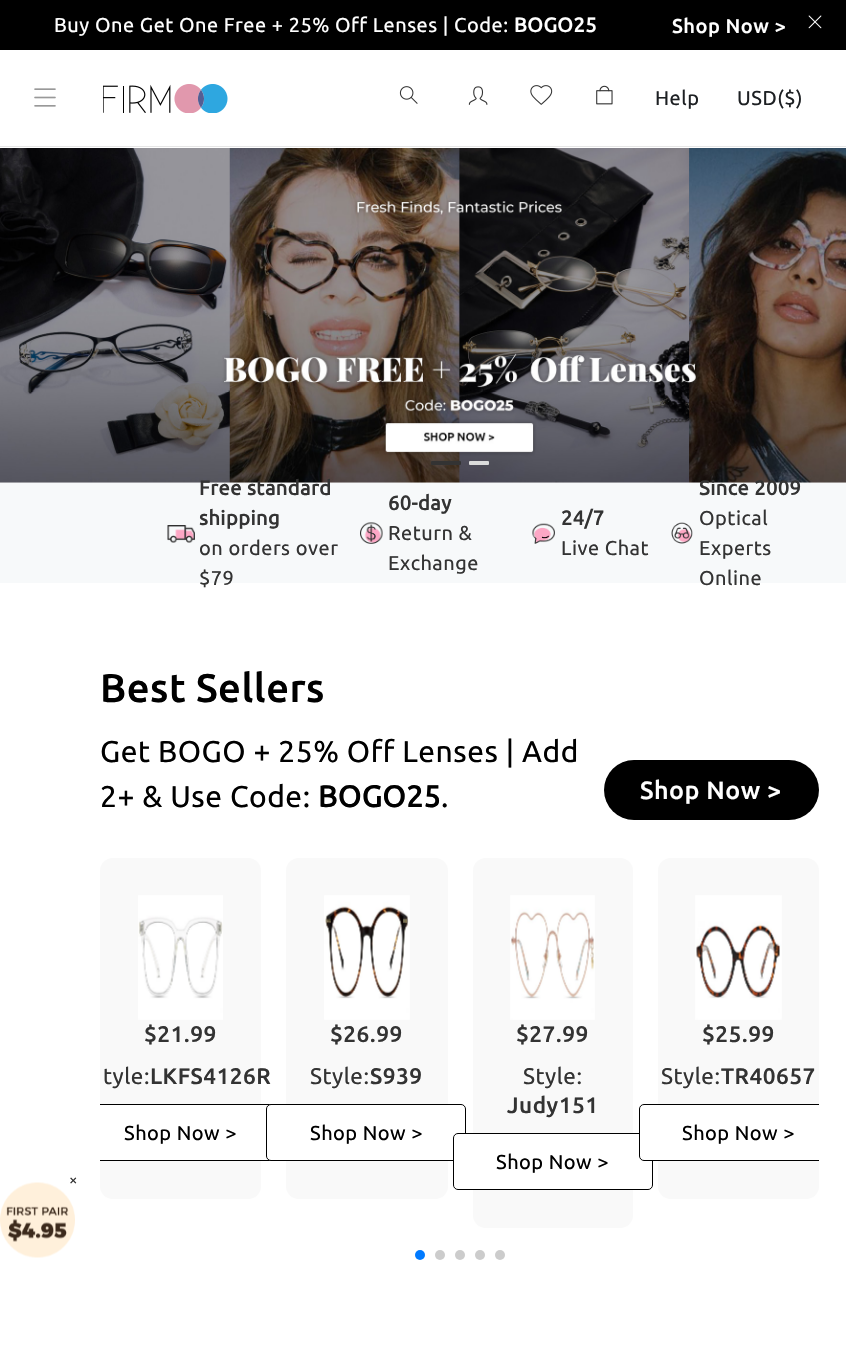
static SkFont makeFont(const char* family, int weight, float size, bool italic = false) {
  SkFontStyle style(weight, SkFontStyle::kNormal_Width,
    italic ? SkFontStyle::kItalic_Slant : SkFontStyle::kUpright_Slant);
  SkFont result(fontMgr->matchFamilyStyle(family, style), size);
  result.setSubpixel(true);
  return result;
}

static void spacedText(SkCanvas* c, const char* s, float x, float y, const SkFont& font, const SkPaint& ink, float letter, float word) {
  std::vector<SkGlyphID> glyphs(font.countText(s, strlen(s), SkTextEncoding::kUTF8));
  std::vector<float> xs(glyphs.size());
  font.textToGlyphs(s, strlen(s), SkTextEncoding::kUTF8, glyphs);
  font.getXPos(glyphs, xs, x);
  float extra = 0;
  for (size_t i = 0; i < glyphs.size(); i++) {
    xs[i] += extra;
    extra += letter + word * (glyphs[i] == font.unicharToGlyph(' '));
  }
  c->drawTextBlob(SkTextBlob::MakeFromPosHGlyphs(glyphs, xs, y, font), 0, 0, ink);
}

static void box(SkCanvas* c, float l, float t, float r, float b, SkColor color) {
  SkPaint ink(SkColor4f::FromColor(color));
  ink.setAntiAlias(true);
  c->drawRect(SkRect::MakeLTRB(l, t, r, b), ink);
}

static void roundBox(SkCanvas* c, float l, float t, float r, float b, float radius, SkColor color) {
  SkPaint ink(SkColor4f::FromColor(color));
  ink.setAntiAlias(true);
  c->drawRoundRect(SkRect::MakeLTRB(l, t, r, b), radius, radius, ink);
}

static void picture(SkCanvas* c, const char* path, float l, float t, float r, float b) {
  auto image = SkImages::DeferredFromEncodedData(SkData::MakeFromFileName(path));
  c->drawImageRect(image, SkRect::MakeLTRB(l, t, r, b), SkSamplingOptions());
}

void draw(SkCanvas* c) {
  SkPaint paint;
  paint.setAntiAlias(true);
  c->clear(0xffffffff);
  box(c, 0, 0, 846, 50, 0xff000000);
  SkFont face1 = makeFont("Ubuntu", 400, 20);
  paint.setColor(0xffffffff);
  spacedText(c, "Buy One Get One Free + 25% Off Lenses | Code:", 54, 32, face1, paint, 0.5f, 0);
  SkFont face2 = makeFont("Ubuntu", 700, 20);
  spacedText(c, "BOGO25", 514, 32, face2, paint, 0.5f, 0);
  SkFont face3 = makeFont("Ubuntu", 500, 20);
  spacedText(c, "Shop Now >", 672, 33, face3, paint, 0.5f, 0);
  picture(c, "img_01.png", 808, 15, 822, 29);
  box(c, 0, 146, 846, 147, 0xffe6e6e6);
  picture(c, "img_02.png", 34, 88, 56, 107);
  picture(c, "img_03.png", 103, 84, 228, 113);
  picture(c, "img_04.png", 399, 86, 418, 104);
  picture(c, "img_05.png", 468, 86, 488, 105);
  picture(c, "img_06.png", 530, 85, 553, 105);
  picture(c, "img_07.png", 596, 85, 613, 105);
  paint.setColor(0xff1d2023);
  spacedText(c, "Help", 655, 105, face1, paint, 0.5f, 0);
  spacedText(c, "USD($)", 737, 105, face1, paint, 0.5f, 0);
  box(c, 0, 482, 846, 483, 0xfff1f1f1);
  picture(c, "img_08.png", 0, 148, 846, 483);
  roundBox(c, 431, 461, 461, 465, 1, 0xff333333);
  roundBox(c, 469, 461, 489, 465, 1, 0xffdbdbdb);
  box(c, 0, 483, 846, 583, 0xfff7f9fa);
  picture(c, "img_09.png", 167, 525, 195, 543);
  paint.setColor(0xff333333);
  spacedText(c, "Free standard", 199, 495, face2, paint, 0.5f, 0);
  spacedText(c, "shipping", 199, 525, face2, paint, 0.5f, 0);
  spacedText(c, "on orders over", 199, 555, face1, paint, 0.5f, 0);
  spacedText(c, "$79", 199, 585, face1, paint, 0.5f, 0);
  picture(c, "img_10.png", 360, 522, 383, 544);
  spacedText(c, "60-day", 388, 510, face2, paint, 0.5f, 0);
  spacedText(c, "Return &", 388, 540, face1, paint, 0.5f, 0);
  spacedText(c, "Exchange", 388, 570, face1, paint, 0.5f, 0);
  picture(c, "img_11.png", 532, 523, 555, 544);
  spacedText(c, "24/7", 561, 525, face2, paint, 0.5f, 0);
  spacedText(c, "Live Chat", 561, 555, face1, paint, 0.5f, 0);
  picture(c, "img_12.png", 671, 522, 693, 544);
  spacedText(c, "Since 2009", 699, 495, face2, paint, 0.5f, 0);
  spacedText(c, "Optical", 699, 525, face1, paint, 0.5f, 0);
  spacedText(c, "Experts", 699, 555, face1, paint, 0.5f, 0);
  spacedText(c, "Online", 699, 585, face1, paint, 0.5f, 0);
  SkFont face4 = makeFont("Ubuntu", 500, 40);
  paint.setColor(0xff000000);
  spacedText(c, "Best Sellers", 100, 702, face4, paint, 0.5f, 0);
  SkFont face5 = makeFont("Ubuntu", 400, 30);
  spacedText(c, "Get BOGO + 25% Off Lenses | Add", 100, 762, face5, paint, 0.5f, 0);
  spacedText(c, "2+ & Use Code:", 100, 807, face5, paint, 0.5f, 0);
  SkFont face6 = makeFont("Ubuntu", 700, 30);
  spacedText(c, "BOGO25", 318, 807, face6, paint, 0.5f, 0);
  spacedText(c, ".", 441, 807, face5, paint, 0.5f, 0);
  roundBox(c, 604, 760, 819, 820, 30, 0xff000000);
  SkFont face7 = makeFont("Ubuntu", 500, 25);
  paint.setColor(0xffffffff);
  spacedText(c, "Shop Now >", 640, 799, face7, paint, 0.5f, 0);
  roundBox(c, 100, 858, 261, 1199, 13, 0xfff9f9f9);
  picture(c, "img_13.png", 138, 895, 223, 1020);
  SkFont face8 = makeFont("Ubuntu", 500, 22.5f);
  paint.setColor(0xff333333);
  spacedText(c, "$21.99", 144, 1042, face8, paint, 0.5f, 0);
  SkFont face9 = makeFont("Ubuntu", 400, 22.5f);
  spacedText(c, "tyle:", 103, 1084, face9, paint, 0.5f, 0);
  spacedText(c, "LKFS4126R", 150, 1084, face8, paint, 0.5f, 0);
  box(c, 100, 1105, 261, 1160, 0xffffffff);
  c->save();
  c->clipRect(SkRect::MakeLTRB(100, 858, 819, 1278));
  paint.setStyle(SkPaint::kStroke_Style);
  paint.setStrokeWidth(1);
  paint.setColor(0xff000000);
  c->drawRoundRect(SkRect::MakeLTRB(80.5f, 1104.5f, 279.5f, 1160.5f), 4.5f, 4.5f, paint);
  c->restore();
  paint.setStyle(SkPaint::kFill_Style);
  spacedText(c, "Shop Now >", 124, 1140, face1, paint, 0.5f, 0);
  roundBox(c, 286, 858, 448, 1199, 13, 0xfff9f9f9);
  picture(c, "img_14.png", 324, 895, 410, 1020);
  paint.setColor(0xff333333);
  spacedText(c, "$26.99", 330, 1042, face8, paint, 0.5f, 0);
  spacedText(c, "Style:", 310, 1084, face9, paint, 0.5f, 0);
  spacedText(c, "S939", 370, 1084, face8, paint, 0.5f, 0);
  paint.setColor(0xffffffff);
  c->drawRoundRect(SkRect::MakeLTRB(266.5f, 1104.5f, 465.5f, 1160.5f), 4.5f, 4.5f, paint);
  paint.setStyle(SkPaint::kStroke_Style);
  paint.setColor(0xff000000);
  c->drawRoundRect(SkRect::MakeLTRB(266.5f, 1104.5f, 465.5f, 1160.5f), 4.5f, 4.5f, paint);
  paint.setStyle(SkPaint::kFill_Style);
  spacedText(c, "Shop Now >", 310, 1140, face1, paint, 0.5f, 0);
  roundBox(c, 473, 858, 633, 1228, 13, 0xfff9f9f9);
  picture(c, "img_15.png", 510, 895, 595, 1020);
  paint.setColor(0xff333333);
  spacedText(c, "$27.99", 516, 1042, face8, paint, 0.5f, 0);
  spacedText(c, "Style:", 523, 1084, face9, paint, 0.5f, 0);
  spacedText(c, "Judy151", 507, 1113, face8, paint, 0.5f, 0);
  paint.setColor(0xffffffff);
  c->drawRoundRect(SkRect::MakeLTRB(453.5f, 1133.5f, 652.5f, 1189.5f), 4.5f, 4.5f, paint);
  paint.setStyle(SkPaint::kStroke_Style);
  paint.setColor(0xff000000);
  c->drawRoundRect(SkRect::MakeLTRB(453.5f, 1133.5f, 652.5f, 1189.5f), 4.5f, 4.5f, paint);
  paint.setStyle(SkPaint::kFill_Style);
  spacedText(c, "Shop Now >", 496, 1169, face1, paint, 0.5f, 0);
  roundBox(c, 658, 858, 819, 1199, 13, 0xfff9f9f9);
  picture(c, "img_16.png", 695, 895, 782, 1020);
  paint.setColor(0xff333333);
  spacedText(c, "$25.99", 702, 1042, face8, paint, 0.5f, 0);
  spacedText(c, "Style:", 661, 1084, face9, paint, 0.5f, 0);
  spacedText(c, "TR40657", 721, 1084, face8, paint, 0.5f, 0);
  paint.setColor(0xffffffff);
  c->drawPath(SkPathBuilder().moveTo(644, 1104).lineTo(819, 1104).lineTo(819, 1161).lineTo(644, 1161).cubicTo(641, 1161, 639, 1159, 639, 1156).lineTo(639, 1109).cubicTo(639, 1106, 641, 1104, 644, 1104).close().detach(), paint);
  c->save();
  c->clipRect(SkRect::MakeLTRB(100, 858, 819, 1278));
  paint.setStyle(SkPaint::kStroke_Style);
  paint.setColor(0xff000000);
  c->drawRoundRect(SkRect::MakeLTRB(639.5f, 1104.5f, 838.5f, 1160.5f), 4.5f, 4.5f, paint);
  c->restore();
  paint.setStyle(SkPaint::kFill_Style);
  spacedText(c, "Shop Now >", 682, 1140, face1, paint, 0.5f, 0);
  paint.setColor(0xff007aff);
  c->drawCircle(420, 1255, 5, paint);
  paint.setColor(0xffcccccc);
  c->drawCircle(440, 1255, 5, paint);
  c->drawCircle(460, 1255, 5, paint);
  c->drawCircle(480, 1255, 5, paint);
  c->drawCircle(500, 1255, 5, paint);
  picture(c, "img_17.png", 0, 1182, 75, 1258);
  SkFont face10 = makeFont("Ubuntu", 400, 15);
  paint.setColor(0xff333333);
  spacedText(c, "×", 69, 1185, face10, paint, 0.5f, 0);
}
